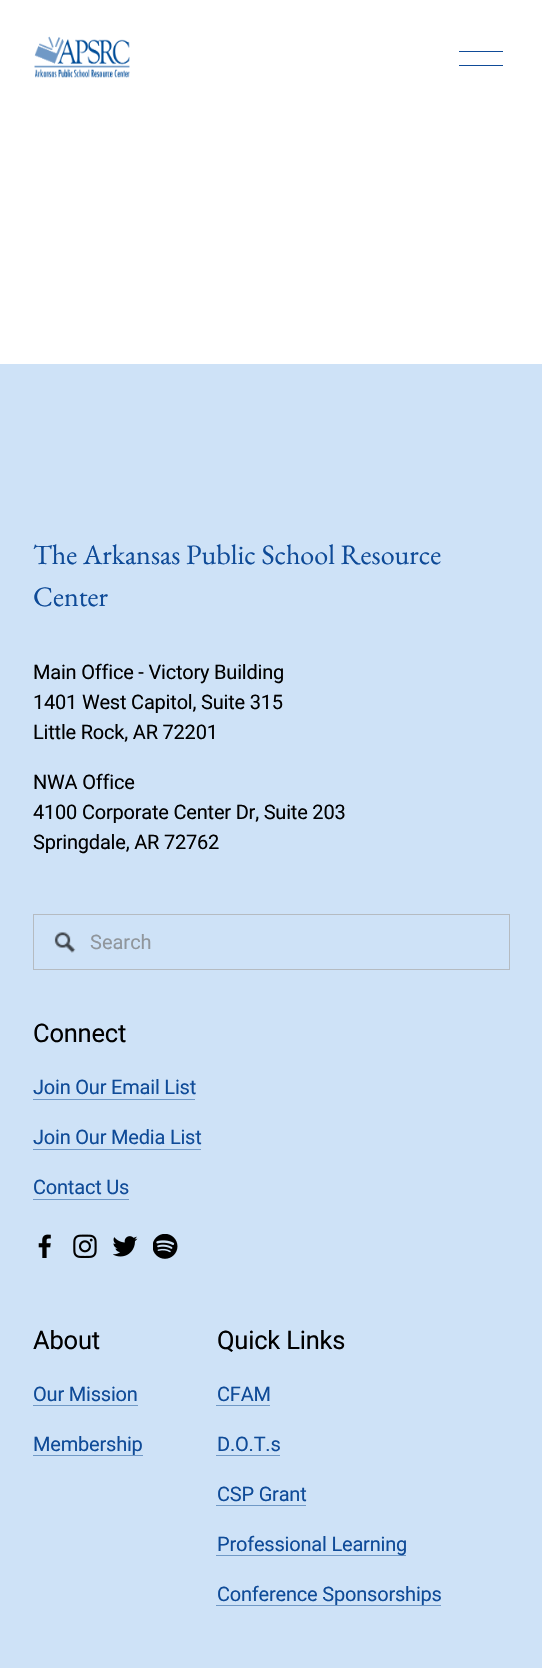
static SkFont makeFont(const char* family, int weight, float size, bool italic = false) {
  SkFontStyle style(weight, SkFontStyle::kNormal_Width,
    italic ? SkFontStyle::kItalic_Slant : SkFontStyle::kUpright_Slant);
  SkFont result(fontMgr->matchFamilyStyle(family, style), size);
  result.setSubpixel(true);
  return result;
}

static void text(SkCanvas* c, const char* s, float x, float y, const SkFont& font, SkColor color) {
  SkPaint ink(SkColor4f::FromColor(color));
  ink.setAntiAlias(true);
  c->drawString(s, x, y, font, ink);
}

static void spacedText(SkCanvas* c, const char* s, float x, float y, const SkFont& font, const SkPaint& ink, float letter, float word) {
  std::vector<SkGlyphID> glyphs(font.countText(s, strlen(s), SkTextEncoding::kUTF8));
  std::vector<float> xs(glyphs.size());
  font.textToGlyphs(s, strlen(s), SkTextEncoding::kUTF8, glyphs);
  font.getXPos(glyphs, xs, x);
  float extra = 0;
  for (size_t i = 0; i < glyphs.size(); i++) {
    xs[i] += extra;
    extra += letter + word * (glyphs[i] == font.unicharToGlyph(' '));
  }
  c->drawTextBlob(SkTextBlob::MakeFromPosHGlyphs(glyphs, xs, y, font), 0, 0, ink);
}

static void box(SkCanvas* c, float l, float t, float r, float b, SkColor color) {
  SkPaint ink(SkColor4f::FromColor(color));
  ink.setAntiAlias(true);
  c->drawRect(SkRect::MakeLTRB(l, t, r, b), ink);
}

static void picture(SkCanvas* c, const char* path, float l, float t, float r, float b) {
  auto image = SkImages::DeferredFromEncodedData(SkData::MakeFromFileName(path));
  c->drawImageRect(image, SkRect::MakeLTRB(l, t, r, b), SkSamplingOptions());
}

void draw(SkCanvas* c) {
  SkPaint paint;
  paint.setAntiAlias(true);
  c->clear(0xffffffff);
  picture(c, "img_01.png", 34, 36, 130, 78);
  box(c, 459, 51, 503, 52, 0xff0f4b98);
  box(c, 459, 65, 503, 66, 0xff0f4b98);
  box(c, 0, 364, 542, 1668, 0xffcee2f7);
  SkFont face1 = makeFont("EB Garamond", 400, 28.1f);
  text(c, "The Arkansas Public School Resource", 33, 564, face1, 0xff0f4b98);
  text(c, "Center", 33, 606, face1, 0xff0f4b98);
  SkFont face2 = makeFont("Roboto", 400, 20);
  paint.setColor(0xff000000);
  spacedText(c, "Main Office - Victory Building", 33, 679, face2, paint, -0.2f, 0);
  spacedText(c, "1401 West Capitol, Suite 315", 33, 709, face2, paint, -0.2f, 0);
  spacedText(c, "Little Rock, AR 72201", 33, 739, face2, paint, -0.2f, 0);
  spacedText(c, "NWA Office", 33, 789, face2, paint, -0.2f, 0);
  spacedText(c, "4100 Corporate Center Dr, Suite 203", 33, 819, face2, paint, -0.2f, 0);
  spacedText(c, "Springdale, AR 72762", 33, 849, face2, paint, -0.2f, 0);
  picture(c, "img_02.png", 54, 932, 76, 953);
  paint.setStyle(SkPaint::kStroke_Style);
  paint.setStrokeWidth(1);
  paint.setColor(0xffb5bbc1);
  c->drawRect(SkRect::MakeLTRB(33.5f, 914.5f, 509.5f, 969.5f), paint);
  text(c, "Search", 90, 949, face2, 0xff90969c);
  SkFont face3 = makeFont("Roboto", 400, 25.5f);
  paint.setStyle(SkPaint::kFill_Style);
  paint.setColor(0xff000000);
  spacedText(c, "Connect", 33, 1042, face3, paint, -0.2f, 0);
  paint.setColor(0xff0f4b98);
  spacedText(c, "Join Our Email List", 33, 1094, face2, paint, -0.2f, 0);
  box(c, 33, 1099, 195, 1100, 0xff7099c6);
  spacedText(c, "Join Our Media List", 33, 1144, face2, paint, -0.2f, 0);
  box(c, 33, 1149, 201, 1150, 0xff7099c6);
  spacedText(c, "Contact Us", 33, 1194, face2, paint, -0.2f, 0);
  box(c, 33, 1199, 129, 1200, 0xff7099c6);
  picture(c, "img_03.png", 38, 1234, 51, 1258);
  picture(c, "img_04.png", 73, 1234, 97, 1258);
  picture(c, "img_05.png", 113, 1236, 138, 1257);
  picture(c, "img_06.png", 153, 1234, 178, 1259);
  paint.setColor(0xff000000);
  spacedText(c, "About", 33, 1349, face3, paint, -0.2f, 0);
  paint.setColor(0xff0f4b98);
  spacedText(c, "Our Mission", 33, 1401, face2, paint, -0.2f, 0);
  box(c, 33, 1405, 138, 1406, 0xff7099c6);
  box(c, 33, 1455, 143, 1456, 0xff7099c6);
  spacedText(c, "Membership", 33, 1451, face2, paint, -0.2f, 0);
  paint.setColor(0xff000000);
  spacedText(c, "Quick Links", 217, 1349, face3, paint, -0.2f, 0);
  paint.setColor(0xff0f4b98);
  spacedText(c, "CFAM", 217, 1401, face2, paint, -0.2f, 0);
  box(c, 216, 1405, 270, 1406, 0xff7099c6);
  spacedText(c, "D.O.T.s", 217, 1451, face2, paint, -0.2f, 0);
  box(c, 216, 1455, 280, 1456, 0xff7099c6);
  spacedText(c, "CSP Grant", 217, 1501, face2, paint, -0.2f, 0);
  box(c, 216, 1505, 306, 1506, 0xff7099c6);
  box(c, 216, 1555, 406, 1556, 0xff7099c6);
  spacedText(c, "Professional Learning", 217, 1551, face2, paint, -0.2f, 0);
  box(c, 216, 1605, 441, 1606, 0xff7099c6);
  spacedText(c, "Conference Sponsorships", 217, 1601, face2, paint, -0.2f, 0);
}
